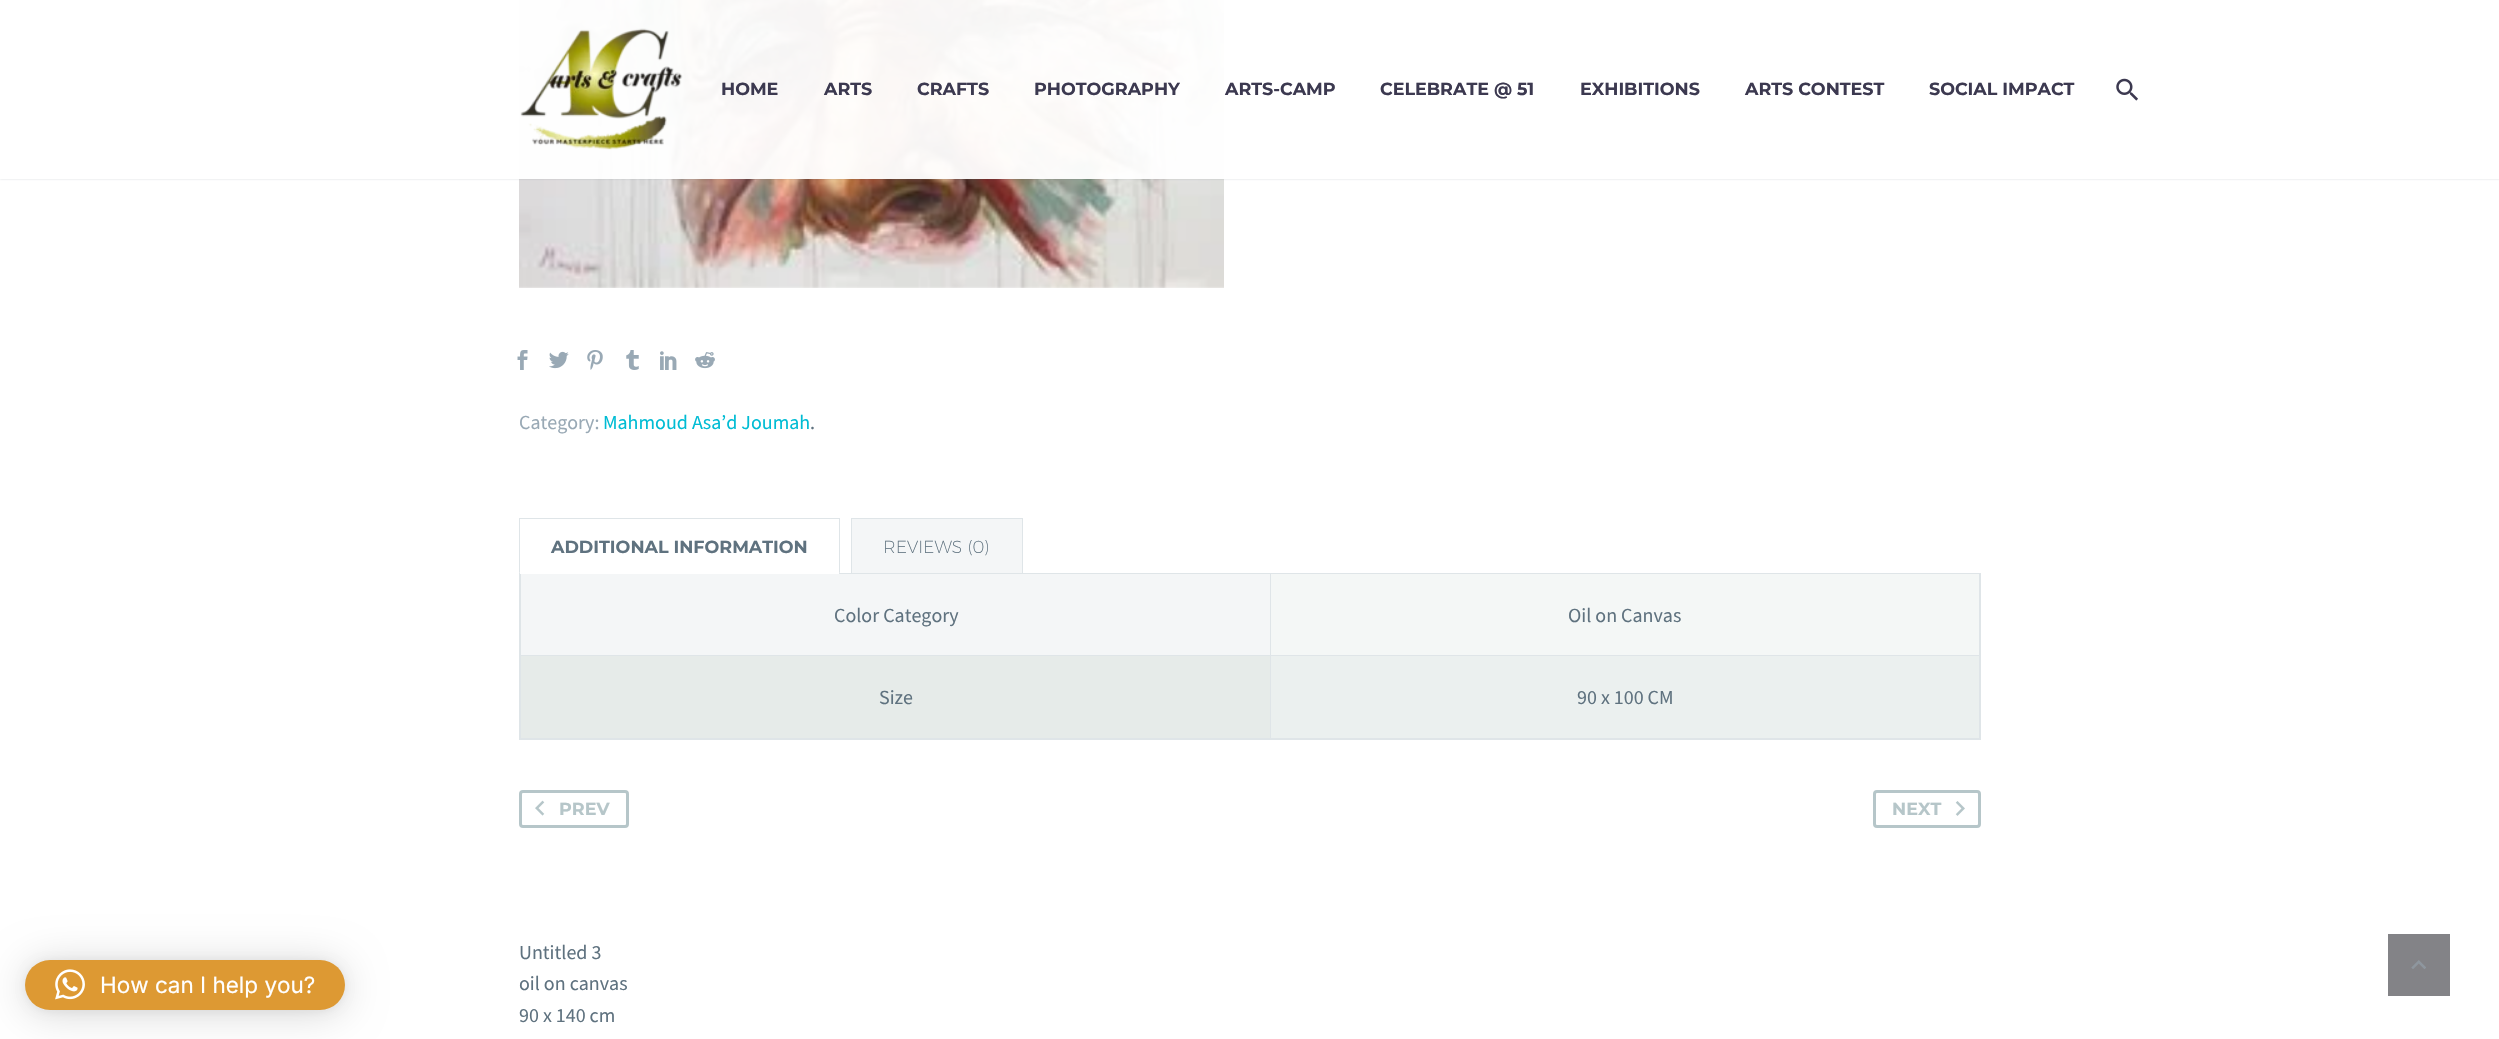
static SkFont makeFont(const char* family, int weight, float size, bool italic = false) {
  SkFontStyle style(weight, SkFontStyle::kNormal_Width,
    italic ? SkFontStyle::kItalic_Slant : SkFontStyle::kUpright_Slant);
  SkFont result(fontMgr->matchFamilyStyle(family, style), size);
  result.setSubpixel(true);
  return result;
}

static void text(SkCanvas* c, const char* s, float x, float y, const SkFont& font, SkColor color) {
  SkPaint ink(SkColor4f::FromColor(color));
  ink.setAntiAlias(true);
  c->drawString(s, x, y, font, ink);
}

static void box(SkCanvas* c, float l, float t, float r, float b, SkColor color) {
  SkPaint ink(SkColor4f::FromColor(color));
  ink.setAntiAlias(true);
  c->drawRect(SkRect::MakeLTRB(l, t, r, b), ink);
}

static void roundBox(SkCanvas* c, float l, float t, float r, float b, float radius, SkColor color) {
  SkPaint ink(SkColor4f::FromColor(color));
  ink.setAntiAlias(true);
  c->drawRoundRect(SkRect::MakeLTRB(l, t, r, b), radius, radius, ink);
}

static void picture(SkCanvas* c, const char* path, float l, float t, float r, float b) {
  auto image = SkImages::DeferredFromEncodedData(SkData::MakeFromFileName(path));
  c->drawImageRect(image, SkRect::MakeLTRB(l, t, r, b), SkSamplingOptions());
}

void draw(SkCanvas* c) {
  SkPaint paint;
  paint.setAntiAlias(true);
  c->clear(0xffffffff);
  paint.setColor(0x29000000);
  paint.setMaskFilter(SkMaskFilter::MakeBlur(kNormal_SkBlurStyle, 20));
  c->drawRoundRect(SkRect::MakeLTRB(25, 963, 345, 1013), 25, 25, paint);
  paint.setMaskFilter(nullptr);
  paint.setColor(0x0f000000);
  paint.setMaskFilter(SkMaskFilter::MakeBlur(kNormal_SkBlurStyle, 4));
  c->drawRoundRect(SkRect::MakeLTRB(25, 961, 345, 1011), 25, 25, paint);
  paint.setMaskFilter(nullptr);
  roundBox(c, 25, 960, 345, 1010, 25, 0xffdd9933);
  picture(c, "img_01.png", 55, 969, 85, 1000);
  SkFont face1 = makeFont("Inter", 400, 22.5f);
  text(c, "How can I help you?", 100, 993, face1, 0xffffffff);
  picture(c, "img_04.png", 519, 0, 1224, 288);
  c->save();
  c->clipPath(SkPathBuilder(SkPathFillType::kEvenOdd).moveTo(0, 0).lineTo(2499, 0).lineTo(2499, 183).lineTo(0, 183).close().moveTo(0, 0).lineTo(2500, 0).lineTo(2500, 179).lineTo(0, 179).close().detach(), true);
  paint.setColor(0x33384554);
  paint.setMaskFilter(SkMaskFilter::MakeBlur(kNormal_SkBlurStyle, 1));
  c->drawRect(SkRect::MakeLTRB(0, 0, 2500, 179), paint);
  paint.setMaskFilter(nullptr);
  c->restore();
  box(c, 0, 0, 2499, 179, 0xf2ffffff);
  picture(c, "img_02.png", 520, 28, 683, 150);
  SkFont face2 = makeFont("Montserrat", 700, 17.5f);
  text(c, "HOME", 721, 95, face2, 0xff3c3950);
  text(c, "ARTS", 824, 95, face2, 0xff3c3950);
  text(c, "CRAFTS", 917, 95, face2, 0xff3c3950);
  text(c, "PHOTOGRAPHY", 1034, 95, face2, 0xff3c3950);
  text(c, "ARTS-CAMP", 1225, 95, face2, 0xff3c3950);
  text(c, "CELEBRATE @ 51", 1380, 95, face2, 0xff3c3950);
  text(c, "EXHIBITIONS", 1580, 95, face2, 0xff3c3950);
  text(c, "ARTS CONTEST", 1745, 95, face2, 0xff3c3950);
  text(c, "SOCIAL IMPACT", 1929, 95, face2, 0xff3c3950);
  picture(c, "img_03.png", 2116, 78, 2138, 101);
  picture(c, "img_05.png", 517, 350, 528, 370);
  picture(c, "img_06.png", 549, 351, 569, 369);
  picture(c, "img_07.png", 587, 350, 603, 370);
  picture(c, "img_08.png", 626, 350, 639, 370);
  picture(c, "img_09.png", 660, 351, 677, 370);
  picture(c, "img_10.png", 695, 352, 715, 369);
  SkFont face3 = makeFont("Source Sans Pro", 400, 20);
  text(c, "Category:", 519, 429, face3, 0xff99a9b5);
  text(c, "Mahmoud Asa’d Joumah", 603, 429, face3, 0xff00bcd4);
  text(c, ".", 810, 429, face3, 0xff5f727f);
  paint.setStyle(SkPaint::kStroke_Style);
  paint.setStrokeWidth(1);
  paint.setColor(0xffdfe5e8);
  c->drawRect(SkRect::MakeLTRB(519.5f, 573.5f, 1980.5f, 739.5f), paint);
  box(c, 519, 573, 840, 574, 0xffffffff);
  box(c, 519, 518, 840, 519, 0xffdfe5e8);
  paint.setStyle(SkPaint::kFill_Style);
  c->drawPath(SkPathBuilder().moveTo(840, 518).lineTo(840, 574).lineTo(839, 572).lineTo(839, 519).close().detach(), paint);
  c->drawPath(SkPathBuilder().moveTo(519, 574).lineTo(519, 518).lineTo(520, 519).lineTo(520, 572).close().detach(), paint);
  text(c, "ADDITIONAL INFORMATION", 551, 553, face2, 0xff5f727f);
  box(c, 519, 573, 520, 574, 0xffdfe5e8);
  box(c, 839, 573, 840, 574, 0xffdfe5e8);
  paint.setColor(0xfff4f6f7);
  c->drawRect(SkRect::MakeLTRB(851.5f, 518.5f, 1022.5f, 573.5f), paint);
  paint.setStyle(SkPaint::kStroke_Style);
  paint.setColor(0xffdfe5e8);
  c->drawRect(SkRect::MakeLTRB(851.5f, 518.5f, 1022.5f, 573.5f), paint);
  SkFont face4 = makeFont("Montserrat", 200, 17.5f);
  text(c, "REVIEWS (0)", 883, 553, face4, 0xff5f727f);
  box(c, 521, 574, 1270, 655, 0xfff4f6f7);
  text(c, "Color Category", 834, 622, face3, 0xff5f727f);
  box(c, 1271, 574, 1979, 655, 0xfff4f7f6);
  box(c, 1270, 655, 1980, 656, 0xffdfe5e8);
  box(c, 1979, 574, 1980, 739, 0xffdfe5e8);
  box(c, 1270, 738, 1980, 739, 0xffdfe5e8);
  box(c, 1270, 655, 1271, 739, 0xffdfe5e8);
  box(c, 520, 655, 1271, 656, 0xffdfe5e8);
  box(c, 1270, 574, 1271, 656, 0xffdfe5e8);
  text(c, "Oil on Canvas", 1568, 622, face3, 0xff5f727f);
  box(c, 521, 656, 1270, 738, 0xffe6ebe9);
  box(c, 520, 738, 1271, 739, 0xffdfe5e8);
  box(c, 520, 574, 521, 739, 0xffdfe5e8);
  text(c, "Size", 879, 704, face3, 0xff5f727f);
  box(c, 1271, 656, 1979, 738, 0xffebf0ef);
  text(c, "90 x 100 CM", 1577, 704, face3, 0xff5f727f);
  paint.setStrokeWidth(3);
  paint.setColor(0xffb6c6c9);
  c->drawRoundRect(SkRect::MakeLTRB(520.5f, 791.5f, 627.5f, 826.5f), 2.5f, 2.5f, paint);
  picture(c, "img_11.png", 535, 800, 545, 816);
  text(c, "PREV", 559, 815, face2, 0xffb6c6c9);
  c->drawRoundRect(SkRect::MakeLTRB(1874.5f, 791.5f, 1979.5f, 826.5f), 2.5f, 2.5f, paint);
  text(c, "NEXT", 1892, 815, face2, 0xffb6c6c9);
  picture(c, "img_12.png", 1955, 801, 1965, 816);
  text(c, "Untitled 3", 519, 959, face3, 0xff5f727f);
  text(c, "oil on canvas", 519, 990, face3, 0xff5f727f);
  text(c, "90 x 140 cm", 519, 1022, face3, 0xff5f727f);
  box(c, 2388, 934, 2450, 996, 0xff838387);
  picture(c, "img_13.png", 2411, 960, 2426, 969);
}
